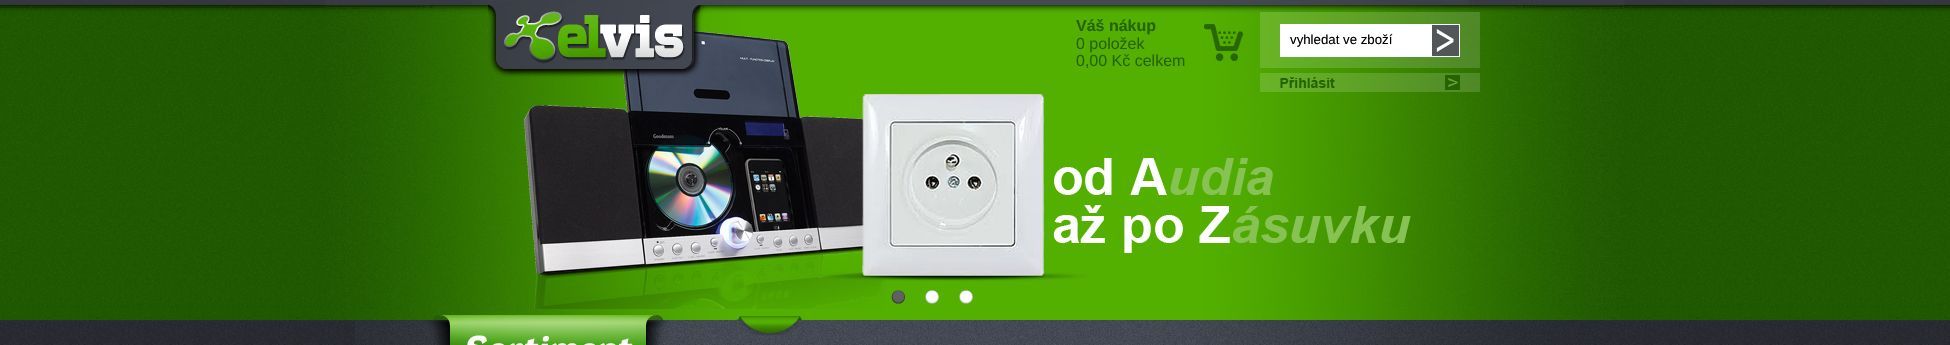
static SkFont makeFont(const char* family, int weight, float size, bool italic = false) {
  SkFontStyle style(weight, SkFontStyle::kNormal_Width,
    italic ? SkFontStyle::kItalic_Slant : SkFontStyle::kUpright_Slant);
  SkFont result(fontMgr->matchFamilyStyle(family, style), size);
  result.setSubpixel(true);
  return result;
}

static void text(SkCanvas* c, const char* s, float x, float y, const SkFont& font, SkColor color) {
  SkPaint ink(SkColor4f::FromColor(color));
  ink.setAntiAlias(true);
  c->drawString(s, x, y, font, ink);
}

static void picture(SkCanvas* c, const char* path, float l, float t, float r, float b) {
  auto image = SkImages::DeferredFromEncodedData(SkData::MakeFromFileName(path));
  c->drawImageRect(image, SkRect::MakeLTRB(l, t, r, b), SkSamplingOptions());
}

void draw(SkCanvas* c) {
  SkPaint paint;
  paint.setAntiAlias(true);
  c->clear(0xffffffff);
  picture(c, "img_01.png", 0, 0, 1950, 345);
  picture(c, "img_02.png", 325, 0, 1625, 320);
  picture(c, "img_03.png", 472, 1, 1443, 311);
  picture(c, "img_04.png", 891, 290, 905, 304);
  picture(c, "img_05.png", 925, 290, 939, 304);
  picture(c, "img_05.png", 959, 290, 973, 304);
  picture(c, "img_06.png", 488, 5, 700, 77);
  picture(c, "img_07.png", 1204, 24, 1243, 61);
  SkFont face1 = makeFont("Liberation Sans", 700, 16);
  text(c, "Váš nákup", 1076, 31, face1, 0xff266301);
  SkFont face2 = makeFont("Liberation Sans", 400, 16);
  text(c, "0 položek", 1076, 49, face2, 0xff266301);
  text(c, "0,00 Kč celkem", 1076, 66, face2, 0xff266301);
  picture(c, "img_08.png", 1260, 12, 1480, 68);
  SkFont face3 = makeFont("Liberation Sans", 400, 13.25f);
  text(c, "vyhledat ve zboží", 1290, 44, face3, 0xff000000);
  picture(c, "img_09.png", 1432, 25, 1456, 56);
  picture(c, "img_10.png", 1260, 73, 1480, 92);
  picture(c, "img_11.png", 355, 315, 1605, 345);
  picture(c, "img_12.png", 736, 316, 802, 335);
}
